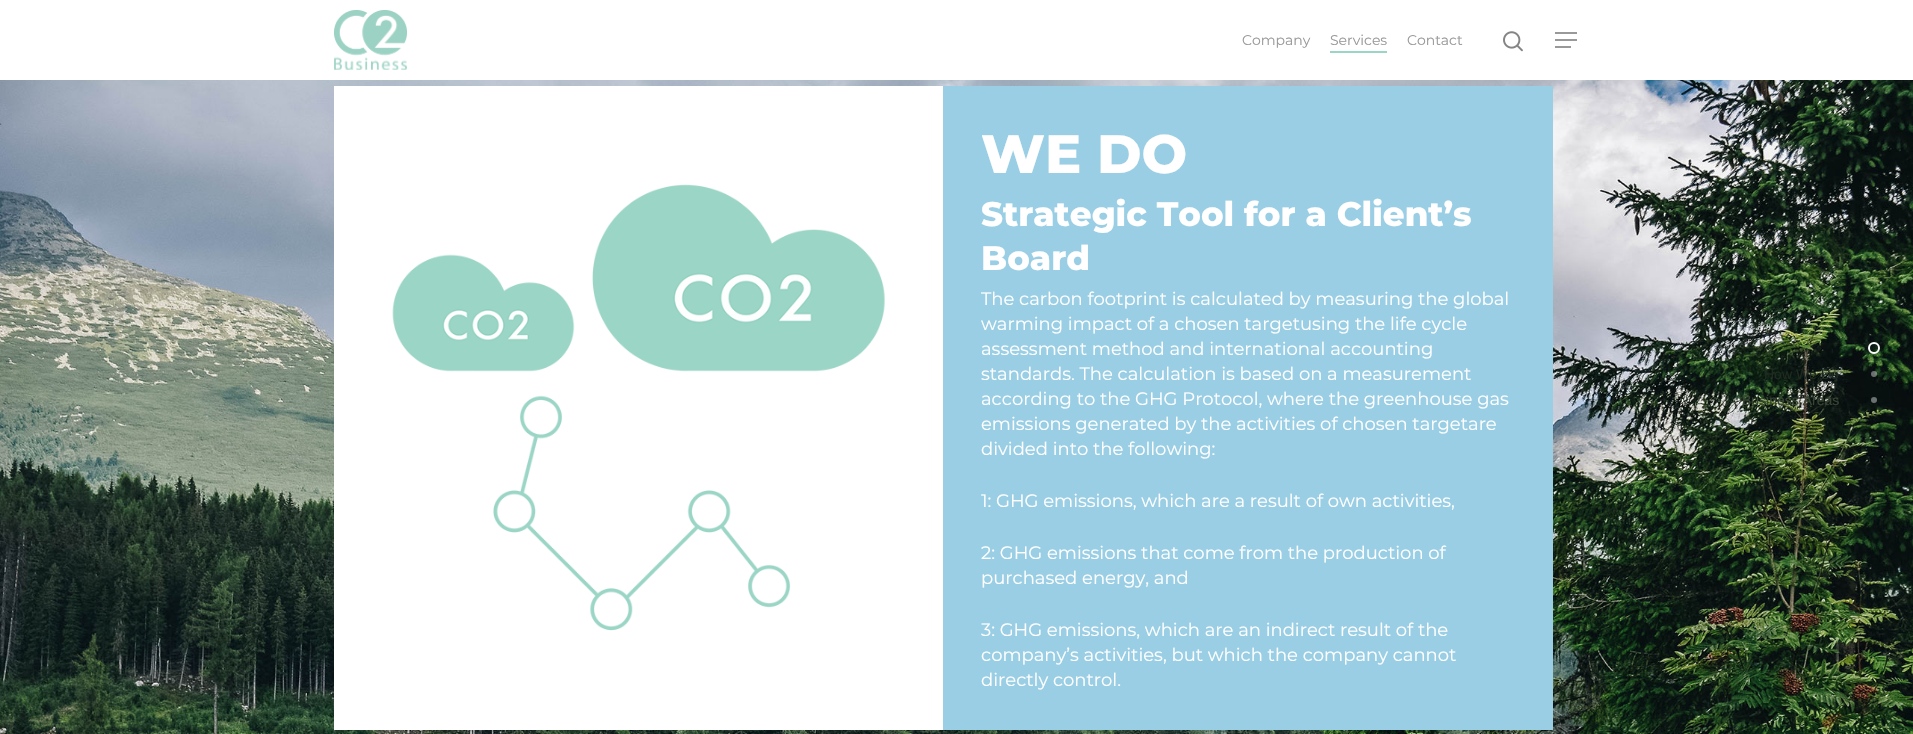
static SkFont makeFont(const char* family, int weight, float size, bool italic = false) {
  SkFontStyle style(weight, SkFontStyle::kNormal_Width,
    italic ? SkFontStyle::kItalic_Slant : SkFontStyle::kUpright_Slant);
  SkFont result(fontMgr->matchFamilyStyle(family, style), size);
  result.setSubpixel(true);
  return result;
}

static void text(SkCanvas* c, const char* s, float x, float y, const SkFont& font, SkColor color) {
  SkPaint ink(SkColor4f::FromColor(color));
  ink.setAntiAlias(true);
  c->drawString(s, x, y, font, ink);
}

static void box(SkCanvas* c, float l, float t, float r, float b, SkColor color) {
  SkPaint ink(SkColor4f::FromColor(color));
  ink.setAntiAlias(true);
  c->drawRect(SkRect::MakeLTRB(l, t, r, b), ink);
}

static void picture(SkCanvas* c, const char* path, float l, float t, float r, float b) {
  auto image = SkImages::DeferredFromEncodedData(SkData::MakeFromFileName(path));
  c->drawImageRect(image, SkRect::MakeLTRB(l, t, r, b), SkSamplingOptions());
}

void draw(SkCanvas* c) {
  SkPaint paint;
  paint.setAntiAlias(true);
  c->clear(0xffffffff);
  picture(c, "img_01.png", 334, 10, 407, 70);
  SkFont face1 = makeFont("Montserrat", 400, 14);
  text(c, "Company", 1242, 45, face1, 0xff999999);
  text(c, "Services", 1330, 45, face1, 0xff999999);
  box(c, 1330, 51, 1387, 53, 0xff9bd5c5);
  text(c, "Contact", 1407, 45, face1, 0xff999999);
  picture(c, "img_02.png", 1503, 31, 1523, 52);
  box(c, 1555, 32, 1577, 34, 0xff999999);
  box(c, 1555, 46, 1571, 48, 0xff999999);
  box(c, 1555, 39, 1577, 41, 0xff999999);
  picture(c, "img_03.png", 0, 80, 1913, 734);
  box(c, 334, 86, 943, 730, 0xffffffff);
  picture(c, "img_04.png", 392, 184, 885, 631);
  box(c, 943, 86, 1553, 730, 0xff99cee4);
  SkFont face2 = makeFont("Montserrat", 800, 54);
  text(c, "WE DO", 981, 173, face2, 0xffffffff);
  SkFont face3 = makeFont("Montserrat", 800, 34);
  text(c, "Strategic Tool for a Client’s", 981, 226, face3, 0xffffffff);
  text(c, "Board", 981, 270, face3, 0xffffffff);
  SkFont face4 = makeFont("Montserrat", 400, 18);
  text(c, "The carbon footprint is calculated by measuring the global", 981, 305, face4, 0xffffffff);
  text(c, "warming impact of a chosen targetusing the life cycle", 981, 330, face4, 0xffffffff);
  text(c, "assessment method and international accounting", 981, 355, face4, 0xffffffff);
  text(c, "standards. The calculation is based on a measurement", 981, 380, face4, 0xffffffff);
  text(c, "according to the GHG Protocol, where the greenhouse gas", 981, 405, face4, 0xffffffff);
  text(c, "emissions generated by the activities of chosen targetare", 981, 430, face4, 0xffffffff);
  text(c, "divided into the following:", 981, 455, face4, 0xffffffff);
  text(c, "1: GHG emissions, which are a result of own activities,", 981, 507, face4, 0xffffffff);
  text(c, "2: GHG emissions that come from the production of", 981, 559, face4, 0xffffffff);
  text(c, "purchased energy, and", 981, 584, face4, 0xffffffff);
  text(c, "3: GHG emissions, which are an indirect result of the", 981, 636, face4, 0xffffffff);
  text(c, "company’s activities, but which the company cannot", 981, 661, face4, 0xffffffff);
  text(c, "directly control.", 981, 686, face4, 0xffffffff);
  paint.setStyle(SkPaint::kStroke_Style);
  paint.setStrokeWidth(2);
  paint.setColor(0xffffffff);
  c->drawCircle(1874, 348, 5, paint);
  SkFont face5 = makeFont("Liberation Sans", 400, 14);
  text(c, "How We Do", 1764, 379, face5, 0xff1f2b20);
  paint.setStyle(SkPaint::kFill_Style);
  paint.setColor(0x66ffffff);
  c->drawCircle(1874, 374, 3, paint);
  text(c, "Business Areas", 1742, 405, face5, 0xff384533);
  c->drawCircle(1874, 400, 3, paint);
}
